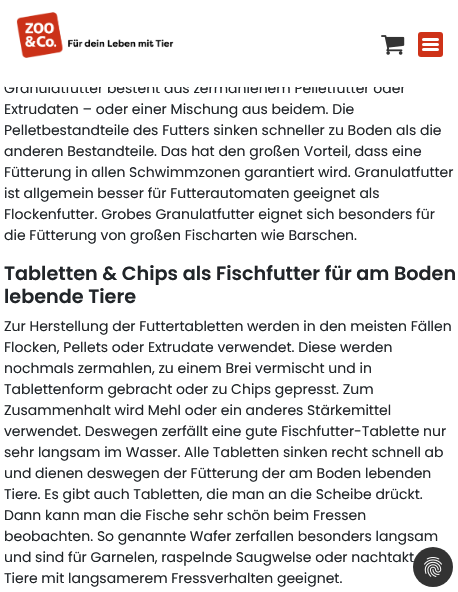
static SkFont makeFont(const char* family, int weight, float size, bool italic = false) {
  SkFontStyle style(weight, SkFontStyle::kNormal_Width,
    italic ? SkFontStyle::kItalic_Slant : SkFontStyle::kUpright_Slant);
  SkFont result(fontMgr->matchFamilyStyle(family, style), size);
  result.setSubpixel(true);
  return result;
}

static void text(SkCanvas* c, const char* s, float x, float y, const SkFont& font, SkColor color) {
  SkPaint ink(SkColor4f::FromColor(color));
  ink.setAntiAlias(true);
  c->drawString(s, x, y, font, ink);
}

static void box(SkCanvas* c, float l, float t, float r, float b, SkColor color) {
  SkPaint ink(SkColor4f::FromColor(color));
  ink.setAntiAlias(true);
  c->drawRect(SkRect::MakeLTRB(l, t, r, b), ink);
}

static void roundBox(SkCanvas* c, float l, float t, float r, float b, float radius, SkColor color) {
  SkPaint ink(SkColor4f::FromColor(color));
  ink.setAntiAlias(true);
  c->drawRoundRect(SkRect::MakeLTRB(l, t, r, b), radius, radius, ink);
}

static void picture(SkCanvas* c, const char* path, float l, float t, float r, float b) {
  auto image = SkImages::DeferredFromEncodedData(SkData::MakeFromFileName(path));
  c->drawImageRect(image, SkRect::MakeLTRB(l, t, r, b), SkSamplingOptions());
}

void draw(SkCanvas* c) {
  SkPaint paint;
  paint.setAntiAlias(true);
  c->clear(0xffffffff);
  SkFont face1 = makeFont("Poppins", 400, 14);
  text(c, "Granulatfutter besteht aus zermahlenem Pelletfutter oder", 4, 93, face1, 0xff212529);
  box(c, 5, 82, 406, 87, 0xffffffff);
  picture(c, "img_01.png", 16, 12, 174, 58);
  picture(c, "img_02.png", 381, 35, 405, 55);
  roundBox(c, 418, 32, 443, 57, 3, 0xffce3218);
  picture(c, "img_03.png", 422, 38, 439, 51);
  text(c, "Extrudaten – oder einer Mischung aus beidem. Die", 4, 114, face1, 0xff212529);
  text(c, "Pelletbestandteile des Futters sinken schneller zu Boden als die", 4, 135, face1, 0xff212529);
  text(c, "anderen Bestandteile. Das hat den großen Vorteil, dass eine", 4, 156, face1, 0xff212529);
  text(c, "Fütterung in allen Schwimmzonen garantiert wird. Granulatfutter", 4, 177, face1, 0xff212529);
  text(c, "ist allgemein besser für Futterautomaten geeignet als", 4, 198, face1, 0xff212529);
  text(c, "Flockenfutter. Grobes Granulatfutter eignet sich besonders für", 4, 219, face1, 0xff212529);
  text(c, "die Fütterung von großen Fischarten wie Barschen.", 4, 240, face1, 0xff212529);
  SkFont face2 = makeFont("Poppins", 600, 19.2f);
  text(c, "Tabletten & Chips als Fischfutter für am Boden", 4, 280, face2, 0xff212529);
  text(c, "lebende Tiere", 4, 303, face2, 0xff212529);
  text(c, "Zur Herstellung der Futtertabletten werden in den meisten Fällen", 4, 331, face1, 0xff212529);
  text(c, "Flocken, Pellets oder Extrudate verwendet. Diese werden", 4, 352, face1, 0xff212529);
  text(c, "nochmals zermahlen, zu einem Brei vermischt und in", 4, 373, face1, 0xff212529);
  text(c, "Tablettenform gebracht oder zu Chips gepresst. Zum", 4, 394, face1, 0xff212529);
  text(c, "Zusammenhalt wird Mehl oder ein anderes Stärkemittel", 4, 415, face1, 0xff212529);
  text(c, "verwendet. Deswegen zerfällt eine gute Fischfutter-Tablette nur", 4, 436, face1, 0xff212529);
  text(c, "sehr langsam im Wasser. Alle Tabletten sinken recht schnell ab", 4, 457, face1, 0xff212529);
  text(c, "und dienen deswegen der Fütterung der am Boden lebenden", 4, 478, face1, 0xff212529);
  text(c, "Tiere. Es gibt auch Tabletten, die man an die Scheibe drückt.", 4, 499, face1, 0xff212529);
  text(c, "Dann kann man die Fische sehr schön beim Fressen", 4, 520, face1, 0xff212529);
  text(c, "beobachten. So genannte Wafer zerfallen besonders langsam", 4, 541, face1, 0xff212529);
  text(c, "und sind für Garnelen, raspelnde Saugwelse oder nachtakt", 4, 562, face1, 0xff212529);
  text(c, "Tiere mit langsamerem Fressverhalten geeignet.", 4, 583, face1, 0xff212529);
  paint.setColor(0xcc000000);
  c->drawCircle(433, 567, 20, paint);
  picture(c, "img_04.png", 424, 557, 442, 577);
}
